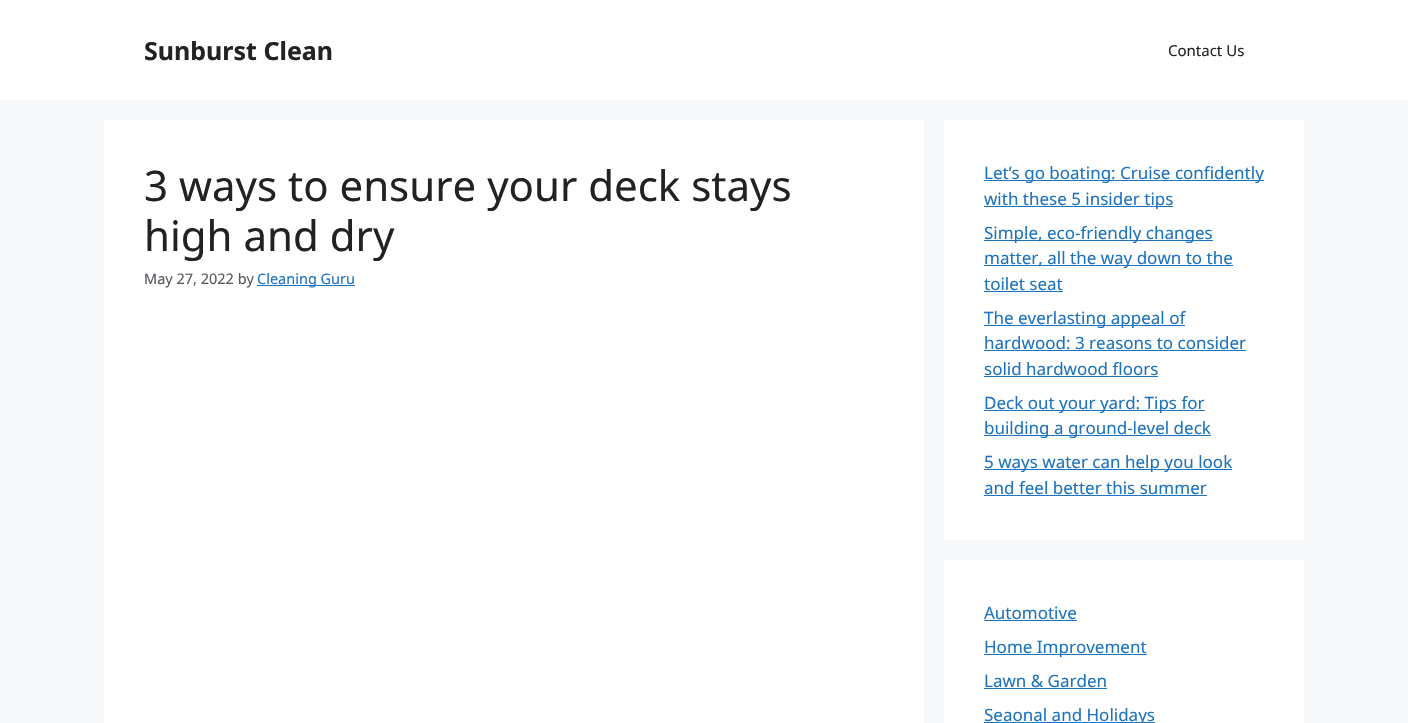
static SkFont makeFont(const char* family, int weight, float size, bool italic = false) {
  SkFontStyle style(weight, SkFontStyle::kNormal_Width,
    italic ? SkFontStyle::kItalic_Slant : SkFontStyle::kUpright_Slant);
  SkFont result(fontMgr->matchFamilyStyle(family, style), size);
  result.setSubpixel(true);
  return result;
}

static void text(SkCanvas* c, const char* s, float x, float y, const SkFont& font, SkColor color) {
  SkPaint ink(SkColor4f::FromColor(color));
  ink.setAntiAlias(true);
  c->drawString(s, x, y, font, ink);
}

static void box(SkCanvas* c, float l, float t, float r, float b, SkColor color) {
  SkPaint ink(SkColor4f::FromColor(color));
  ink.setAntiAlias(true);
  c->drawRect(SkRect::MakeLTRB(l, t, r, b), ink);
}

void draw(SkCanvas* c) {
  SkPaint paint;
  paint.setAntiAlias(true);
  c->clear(0xfff7f8f9);
  box(c, 0, 0, 1408, 100, 0xffffffff);
  SkFont face1 = makeFont("Noto Sans", 700, 25);
  text(c, "Sunburst Clean", 144, 60, face1, 0xff222222);
  SkFont face2 = makeFont("Noto Sans", 400, 15);
  text(c, "Contact Us", 1168, 56, face2, 0xff222222);
  box(c, 104, 120, 924, 723, 0xffffffff);
  SkFont face3 = makeFont("Noto Sans", 400, 42);
  text(c, "3 ways to ensure your deck stays", 144, 201, face3, 0xff222222);
  text(c, "high and dry", 144, 251, face3, 0xff222222);
  SkFont face4 = makeFont("Noto Sans", 400, 14.5f);
  text(c, "May 27, 2022 by", 144, 284, face4, 0xff575760);
  box(c, 257, 285, 355, 286, 0xff1e73be);
  text(c, "Cleaning Guru", 257, 284, face4, 0xff1e73be);
  box(c, 944, 120, 1304, 540, 0xffffffff);
  box(c, 984, 180, 1264, 181, 0xff1e73be);
  SkFont face5 = makeFont("Noto Sans", 400, 17);
  text(c, "Let’s go boating: Cruise confidently", 984, 179, face5, 0xff1e73be);
  box(c, 984, 206, 1173, 207, 0xff1e73be);
  text(c, "with these 5 insider tips", 984, 205, face5, 0xff1e73be);
  box(c, 984, 240, 1213, 241, 0xff1e73be);
  text(c, "Simple, eco-friendly changes", 984, 239, face5, 0xff1e73be);
  box(c, 984, 265, 1233, 266, 0xff1e73be);
  text(c, "matter, all the way down to the", 984, 264, face5, 0xff1e73be);
  text(c, "toilet seat", 984, 290, face5, 0xff1e73be);
  box(c, 984, 291, 1063, 292, 0xff1e73be);
  box(c, 984, 325, 1185, 326, 0xff1e73be);
  text(c, "The everlasting appeal of", 984, 324, face5, 0xff1e73be);
  text(c, "hardwood: 3 reasons to consider", 984, 349, face5, 0xff1e73be);
  box(c, 984, 350, 1246, 351, 0xff1e73be);
  text(c, "solid hardwood floors", 984, 375, face5, 0xff1e73be);
  box(c, 984, 376, 1158, 377, 0xff1e73be);
  box(c, 984, 410, 1205, 411, 0xff1e73be);
  text(c, "Deck out your yard: Tips for", 984, 409, face5, 0xff1e73be);
  box(c, 984, 435, 1211, 436, 0xff1e73be);
  text(c, "building a ground-level deck", 984, 434, face5, 0xff1e73be);
  box(c, 984, 469, 1232, 470, 0xff1e73be);
  text(c, "5 ways water can help you look", 984, 468, face5, 0xff1e73be);
  text(c, "and feel better this summer", 984, 494, face5, 0xff1e73be);
  box(c, 984, 495, 1207, 496, 0xff1e73be);
  box(c, 944, 560, 1304, 723, 0xffffffff);
  text(c, "Automotive", 984, 619, face5, 0xff1e73be);
  box(c, 984, 620, 1077, 621, 0xff1e73be);
  box(c, 984, 654, 1147, 655, 0xff1e73be);
  text(c, "Home Improvement", 984, 653, face5, 0xff1e73be);
  text(c, "Lawn & Garden", 984, 687, face5, 0xff1e73be);
  box(c, 984, 688, 1107, 689, 0xff1e73be);
  box(c, 984, 722, 1155, 723, 0xff1e73be);
  text(c, "Seaonal and Holidays", 984, 721, face5, 0xff1e73be);
}
